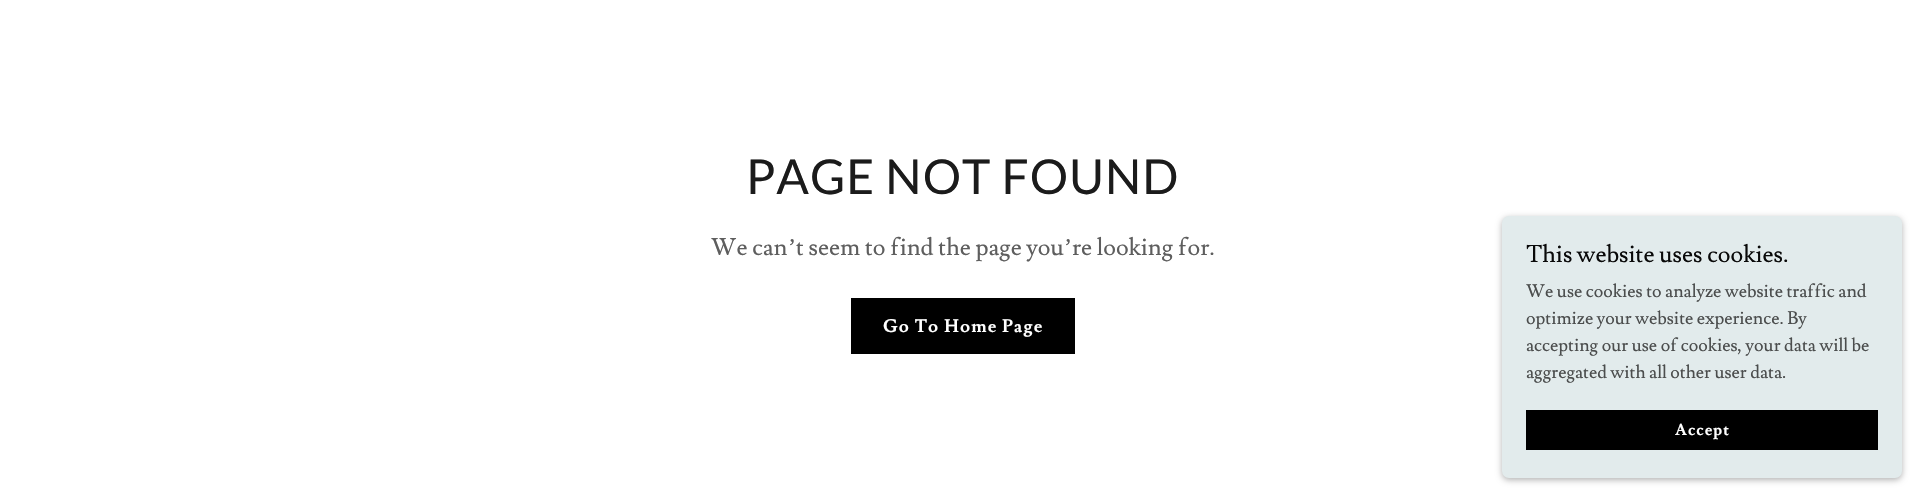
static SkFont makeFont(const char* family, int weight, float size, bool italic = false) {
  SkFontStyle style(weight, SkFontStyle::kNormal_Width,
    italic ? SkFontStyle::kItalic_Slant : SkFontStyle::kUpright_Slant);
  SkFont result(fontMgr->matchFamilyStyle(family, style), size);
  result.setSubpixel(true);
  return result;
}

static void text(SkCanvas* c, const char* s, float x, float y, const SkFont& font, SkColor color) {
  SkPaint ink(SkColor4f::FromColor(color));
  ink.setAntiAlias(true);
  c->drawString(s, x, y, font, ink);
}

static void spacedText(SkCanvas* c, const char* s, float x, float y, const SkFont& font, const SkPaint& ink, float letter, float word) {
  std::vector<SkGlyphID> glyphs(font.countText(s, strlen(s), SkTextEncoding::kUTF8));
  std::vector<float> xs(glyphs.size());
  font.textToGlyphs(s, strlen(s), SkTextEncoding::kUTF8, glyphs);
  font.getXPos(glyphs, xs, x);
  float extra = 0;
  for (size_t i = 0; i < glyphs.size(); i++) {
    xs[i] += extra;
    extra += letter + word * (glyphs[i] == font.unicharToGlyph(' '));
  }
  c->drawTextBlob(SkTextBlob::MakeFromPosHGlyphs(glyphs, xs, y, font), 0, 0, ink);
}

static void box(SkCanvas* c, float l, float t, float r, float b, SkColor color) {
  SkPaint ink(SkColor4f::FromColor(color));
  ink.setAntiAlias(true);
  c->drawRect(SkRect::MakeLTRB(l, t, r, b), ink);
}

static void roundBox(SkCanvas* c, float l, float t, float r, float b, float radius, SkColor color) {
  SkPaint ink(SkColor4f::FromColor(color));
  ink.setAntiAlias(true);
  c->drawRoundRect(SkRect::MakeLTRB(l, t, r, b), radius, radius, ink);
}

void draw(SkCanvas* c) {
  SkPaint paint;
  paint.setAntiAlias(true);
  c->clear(0xffffffff);
  SkFont face1 = makeFont("Lato", 400, 48);
  paint.setColor(0xff1b1b1b);
  spacedText(c, "PAGE NOT FOUND", 746, 194, face1, paint, 1, 0);
  SkFont face2 = makeFont("Lusitana", 400, 24);
  text(c, "We can", 711, 255, face2, 0xff5e5e5e);
  SkFont face3 = makeFont("Liberation Serif", 400, 24);
  text(c, "’", 788, 255, face3, 0xff5e5e5e);
  text(c, "t seem to find the page you", 796, 255, face2, 0xff5e5e5e);
  text(c, "’", 1064, 255, face3, 0xff5e5e5e);
  text(c, "re looking for.", 1072, 255, face2, 0xff5e5e5e);
  box(c, 851, 298, 1075, 354, 0xff000000);
  SkFont face4 = makeFont("Lusitana", 700, 18);
  paint.setColor(0xffffffff);
  spacedText(c, "Go To Home Page", 883, 332, face4, paint, 1.1f, 0);
  paint.setColor(0x4d000000);
  paint.setMaskFilter(SkMaskFilter::MakeBlur(kNormal_SkBlurStyle, 3));
  c->drawRoundRect(SkRect::MakeLTRB(1502, 218, 1902, 480), 7, 7, paint);
  paint.setMaskFilter(nullptr);
  roundBox(c, 1502, 216, 1902, 478, 7, 0xffe2ebec);
  text(c, "This website uses cookies.", 1526, 262, face2, 0xff090909);
  SkFont face5 = makeFont("Lusitana", 400, 18);
  text(c, "We use cookies to analyze website traffic and", 1526, 297, face5, 0xff4b4d4d);
  text(c, "optimize your website experience. By", 1526, 324, face5, 0xff4b4d4d);
  text(c, "accepting our use of cookies, your data will be", 1526, 351, face5, 0xff4b4d4d);
  text(c, "aggregated with all other user data.", 1526, 378, face5, 0xff4b4d4d);
  box(c, 1526, 410, 1878, 450, 0xff000000);
  SkFont face6 = makeFont("Lusitana", 700, 16);
  paint.setColor(0xffffffff);
  spacedText(c, "Accept", 1675, 435, face6, paint, 1, 0);
}
